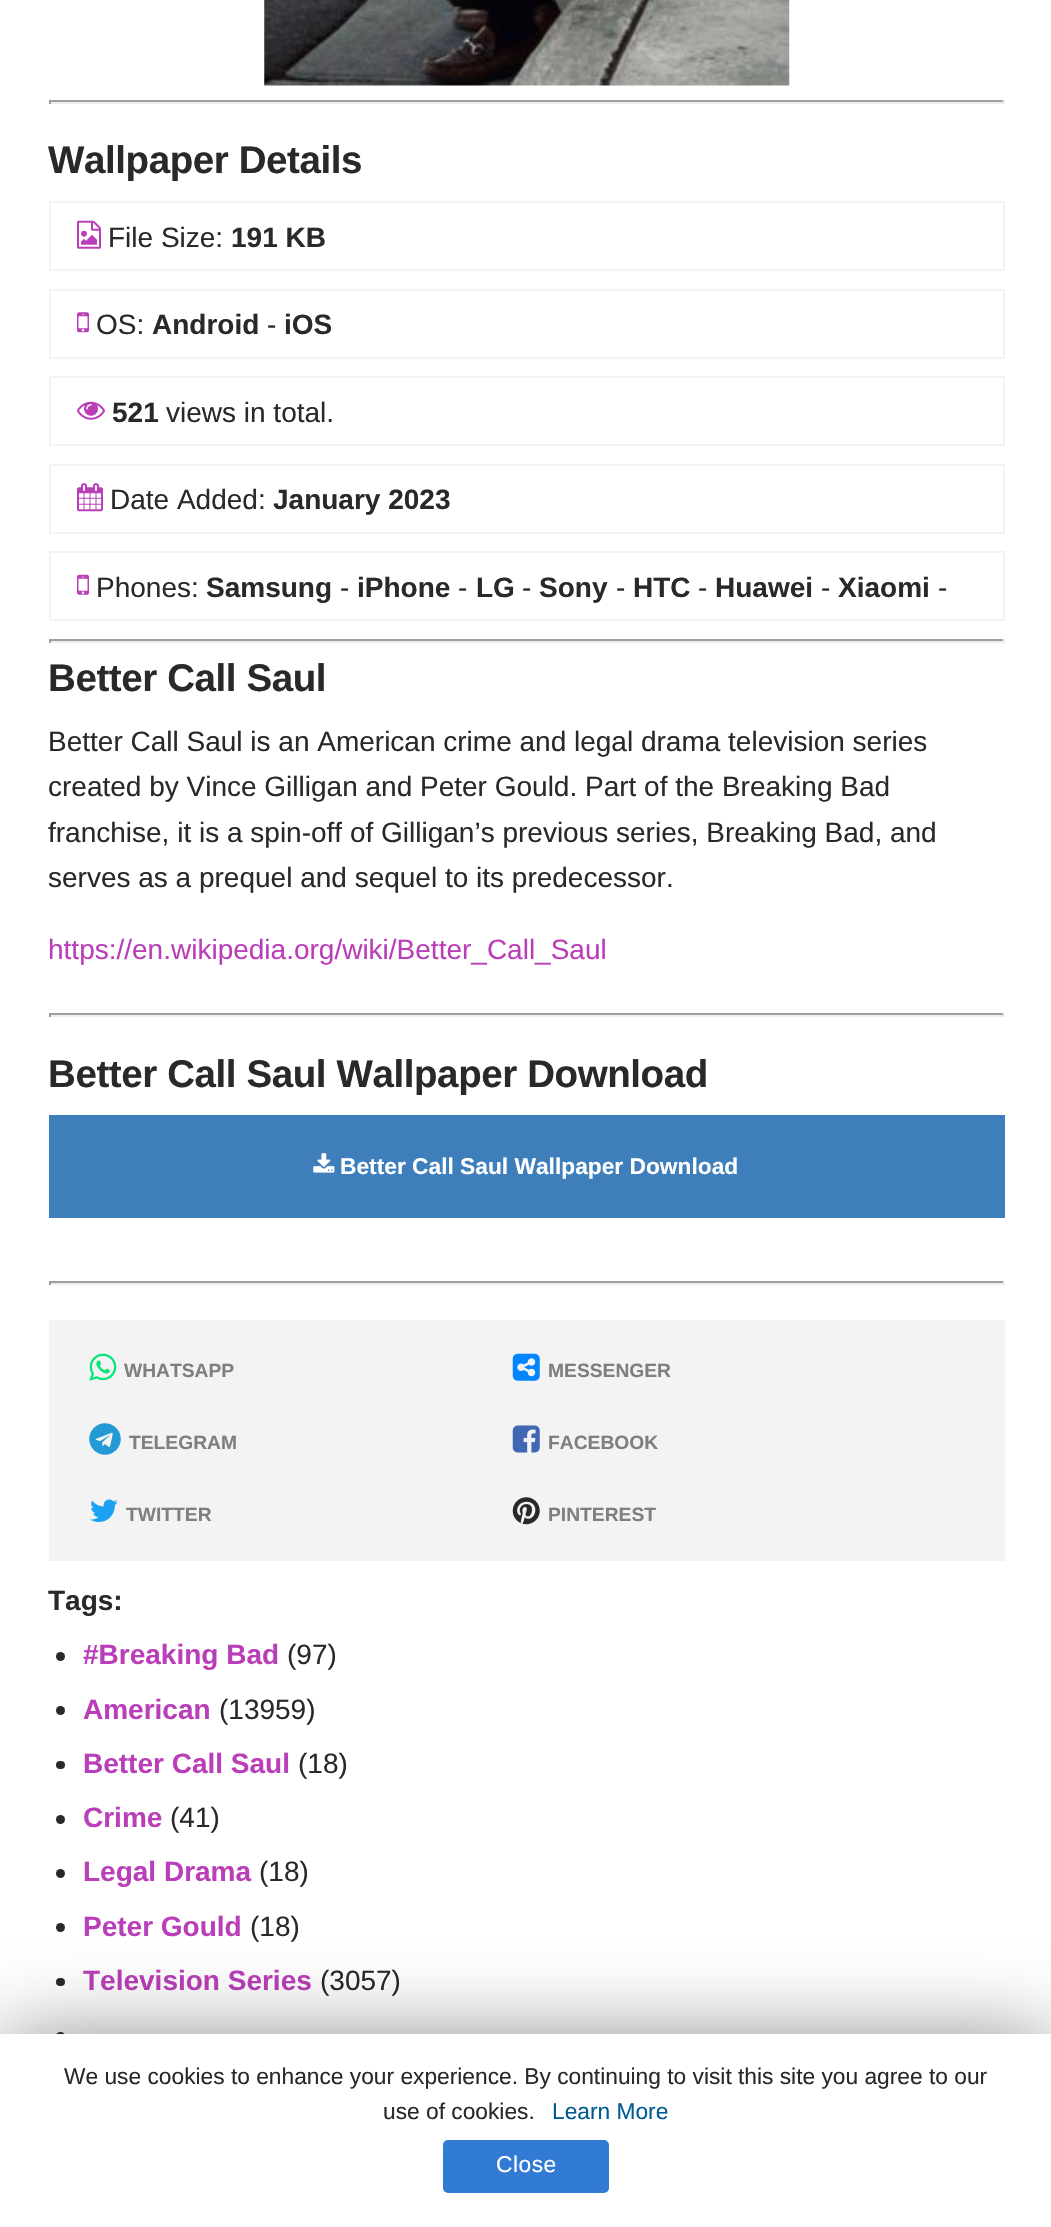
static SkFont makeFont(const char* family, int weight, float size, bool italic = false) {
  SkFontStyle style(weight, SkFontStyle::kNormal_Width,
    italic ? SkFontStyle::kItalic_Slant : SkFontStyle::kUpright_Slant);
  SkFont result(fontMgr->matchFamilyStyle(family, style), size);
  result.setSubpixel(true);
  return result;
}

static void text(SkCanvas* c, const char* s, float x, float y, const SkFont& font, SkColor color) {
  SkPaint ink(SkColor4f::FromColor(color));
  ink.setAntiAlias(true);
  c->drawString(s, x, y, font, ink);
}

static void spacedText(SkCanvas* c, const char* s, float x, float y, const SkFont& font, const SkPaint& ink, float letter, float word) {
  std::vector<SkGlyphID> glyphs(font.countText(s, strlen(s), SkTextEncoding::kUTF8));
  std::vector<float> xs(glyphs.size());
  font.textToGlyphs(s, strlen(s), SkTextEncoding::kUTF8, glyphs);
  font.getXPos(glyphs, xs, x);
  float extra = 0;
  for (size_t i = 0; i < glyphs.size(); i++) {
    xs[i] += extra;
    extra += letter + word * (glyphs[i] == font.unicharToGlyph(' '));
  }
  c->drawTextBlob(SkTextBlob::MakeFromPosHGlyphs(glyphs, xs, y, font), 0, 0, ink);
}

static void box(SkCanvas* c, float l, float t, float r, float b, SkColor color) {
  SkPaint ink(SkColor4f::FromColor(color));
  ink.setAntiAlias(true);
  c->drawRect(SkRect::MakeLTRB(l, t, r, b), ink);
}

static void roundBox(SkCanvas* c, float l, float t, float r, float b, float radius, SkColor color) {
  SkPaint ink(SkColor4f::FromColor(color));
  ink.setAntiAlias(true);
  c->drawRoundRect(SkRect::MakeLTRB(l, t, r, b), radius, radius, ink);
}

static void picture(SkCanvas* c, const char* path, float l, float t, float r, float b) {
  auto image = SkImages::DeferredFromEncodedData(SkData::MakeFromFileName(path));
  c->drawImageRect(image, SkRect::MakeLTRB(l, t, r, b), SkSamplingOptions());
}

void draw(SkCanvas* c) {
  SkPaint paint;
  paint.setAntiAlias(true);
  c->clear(0xffffffff);
  picture(c, "img_01.png", 264, 0, 790, 86);
  box(c, 49, 100, 1005, 102, 0xff9f9f9f);
  box(c, 1003, 100, 1005, 104, 0xffeeeeee);
  box(c, 49, 102, 1005, 104, 0xffeeeeee);
  box(c, 49, 100, 51, 104, 0xff9f9f9f);
  SkFont face1 = makeFont("Liberation Sans", 700, 38.5f);
  paint.setColor(0xff292929);
  spacedText(c, "Wallpaper Details", 48, 173, face1, paint, -0.4f, 0);
  paint.setStyle(SkPaint::kStroke_Style);
  paint.setStrokeWidth(2);
  paint.setColor(0xfff3f3f3);
  c->drawRect(SkRect::MakeLTRB(50, 202, 1004, 270), paint);
  picture(c, "img_02.png", 77, 220, 101, 249);
  SkFont face2 = makeFont("Liberation Sans", 400, 28);
  text(c, "File Size:", 108, 247, face2, 0xff292929);
  SkFont face3 = makeFont("Liberation Sans", 700, 28);
  text(c, "191 KB", 231, 247, face3, 0xff292929);
  c->drawRect(SkRect::MakeLTRB(50, 290, 1004, 358), paint);
  picture(c, "img_03.png", 77, 312, 89, 333);
  text(c, "OS:", 96, 334, face2, 0xff292929);
  text(c, "Android", 152, 334, face3, 0xff292929);
  text(c, "-", 267, 334, face2, 0xff292929);
  text(c, "iOS", 284, 334, face3, 0xff292929);
  c->drawRect(SkRect::MakeLTRB(50, 377, 1004, 445), paint);
  picture(c, "img_04.png", 77, 401, 105, 420);
  text(c, "521", 112, 422, face3, 0xff292929);
  text(c, "views in total.", 166, 422, face2, 0xff292929);
  c->drawRect(SkRect::MakeLTRB(50, 465, 1004, 533), paint);
  picture(c, "img_05.png", 77, 483, 103, 512);
  text(c, "Date Added:", 110, 509, face2, 0xff292929);
  text(c, "January 2023", 273, 509, face3, 0xff292929);
  c->drawRect(SkRect::MakeLTRB(50, 552, 1004, 620), paint);
  picture(c, "img_06.png", 77, 574, 89, 595);
  text(c, "Phones:", 96, 597, face2, 0xff292929);
  text(c, "Samsung", 206, 597, face3, 0xff292929);
  text(c, "-", 340, 597, face2, 0xff292929);
  text(c, "iPhone", 357, 597, face3, 0xff292929);
  text(c, "-", 458, 597, face2, 0xff292929);
  text(c, "LG", 476, 597, face3, 0xff292929);
  text(c, "-", 522, 597, face2, 0xff292929);
  text(c, "Sony", 539, 597, face3, 0xff292929);
  text(c, "-", 616, 597, face2, 0xff292929);
  text(c, "HTC", 633, 597, face3, 0xff292929);
  text(c, "-", 698, 597, face2, 0xff292929);
  text(c, "Huawei", 715, 597, face3, 0xff292929);
  text(c, "-", 821, 597, face2, 0xff292929);
  text(c, "Xiaomi", 838, 597, face3, 0xff292929);
  text(c, "-", 938, 597, face2, 0xff292929);
  box(c, 49, 639, 1005, 641, 0xff9f9f9f);
  box(c, 1003, 639, 1005, 643, 0xffeeeeee);
  box(c, 49, 641, 1005, 643, 0xffeeeeee);
  box(c, 49, 639, 51, 643, 0xff9f9f9f);
  paint.setStyle(SkPaint::kFill_Style);
  paint.setColor(0xff292929);
  spacedText(c, "Better Call Saul", 48, 691, face1, paint, -0.4f, 0);
  text(c, "Better Call Saul is an American crime and legal drama television series", 48, 751, face2, 0xff292929);
  text(c, "created by Vince Gilligan and Peter Gould. Part of the Breaking Bad", 48, 796, face2, 0xff292929);
  text(c, "franchise, it is a spin-off of Gilligan’s previous series, Breaking Bad, and", 48, 842, face2, 0xff292929);
  text(c, "serves as a prequel and sequel to its predecessor.", 48, 887, face2, 0xff292929);
  text(c, "https://en.wikipedia.org/wiki/Better_Call_Saul", 48, 959, face2, 0xffba3eb9);
  box(c, 49, 1013, 1005, 1015, 0xff9f9f9f);
  box(c, 1003, 1013, 1005, 1017, 0xffeeeeee);
  box(c, 49, 1015, 1005, 1017, 0xffeeeeee);
  box(c, 49, 1013, 51, 1017, 0xff9f9f9f);
  spacedText(c, "Better Call Saul Wallpaper Download", 48, 1087, face1, paint, -0.4f, 0);
  box(c, 49, 1115, 1005, 1218, 0xff3e7eba);
  picture(c, "img_07.png", 313, 1153, 335, 1173);
  SkFont face4 = makeFont("Liberation Sans", 700, 22.75f);
  text(c, "Better Call Saul Wallpaper Download", 340, 1174, face4, 0xffffffff);
  box(c, 49, 1281, 1005, 1283, 0xff9f9f9f);
  box(c, 1003, 1281, 1005, 1285, 0xffeeeeee);
  box(c, 49, 1283, 1005, 1285, 0xffeeeeee);
  box(c, 49, 1281, 51, 1285, 0xff9f9f9f);
  box(c, 49, 1320, 1005, 1561, 0xfff3f3f3);
  picture(c, "img_08.png", 89, 1353, 117, 1381);
  SkFont face5 = makeFont("Liberation Sans", 700, 19.25f);
  text(c, "WHATSAPP", 124, 1377, face5, 0xff7f7f7f);
  picture(c, "img_09.png", 512, 1353, 540, 1381);
  text(c, "MESSENGER", 548, 1377, face5, 0xff7f7f7f);
  picture(c, "img_10.png", 89, 1423, 121, 1455);
  text(c, "TELEGRAM", 129, 1449, face5, 0xff7f7f7f);
  picture(c, "img_11.png", 512, 1425, 540, 1453);
  text(c, "FACEBOOK", 548, 1449, face5, 0xff7f7f7f);
  picture(c, "img_12.png", 90, 1499, 118, 1522);
  text(c, "TWITTER", 126, 1521, face5, 0xff7f7f7f);
  picture(c, "img_13.png", 512, 1497, 540, 1525);
  text(c, "PINTEREST", 548, 1521, face5, 0xff7f7f7f);
  text(c, "Tags:", 48, 1610, face3, 0xff292929);
  c->drawCircle(60.5f, 1656.5f, 4.5f, paint);
  text(c, "#Breaking Bad", 83, 1664, face3, 0xffba3eb9);
  text(c, "(97)", 287, 1664, face2, 0xff292929);
  c->drawCircle(60.5f, 1710.5f, 4.5f, paint);
  text(c, "American", 83, 1719, face3, 0xffba3eb9);
  text(c, "(13959)", 219, 1719, face2, 0xff292929);
  roundBox(c, 56, 1761, 65, 1769, 4, 0xff292929);
  text(c, "Better Call Saul", 83, 1773, face3, 0xffba3eb9);
  text(c, "(18)", 298, 1773, face2, 0xff292929);
  c->drawCircle(60.5f, 1819.5f, 4.5f, paint);
  text(c, "Crime", 83, 1827, face3, 0xffba3eb9);
  text(c, "(41)", 170, 1827, face2, 0xff292929);
  c->drawCircle(60.5f, 1873.5f, 4.5f, paint);
  text(c, "Legal Drama", 83, 1881, face3, 0xffba3eb9);
  text(c, "(18)", 259, 1881, face2, 0xff292929);
  c->drawCircle(60.5f, 1927.5f, 4.5f, paint);
  text(c, "Peter Gould", 83, 1936, face3, 0xffba3eb9);
  text(c, "(18)", 250, 1936, face2, 0xff292929);
  roundBox(c, 56, 1978, 65, 1986, 4, 0xff292929);
  text(c, "Television Series", 83, 1990, face3, 0xffba3eb9);
  text(c, "(3057)", 320, 1990, face2, 0xff292929);
  c->drawCircle(60.5f, 2036.5f, 4.5f, paint);
  paint.setColor(0x80000000);
  paint.setMaskFilter(SkMaskFilter::MakeBlur(kNormal_SkBlurStyle, 44));
  c->drawRect(SkRect::MakeLTRB(0, 2042, 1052, 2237), paint);
  paint.setMaskFilter(nullptr);
  box(c, 0, 2034, 1051, 2227, 0xffffffff);
  SkFont face6 = makeFont("Liberation Sans", 400, 22.75f);
  text(c, "We use cookies to enhance your experience. By continuing to visit this site you agree to our", 64, 2084, face6, 0xff292929);
  text(c, "use of cookies.", 383, 2119, face6, 0xff292929);
  text(c, "Learn More", 552, 2119, face6, 0xff005b90);
  roundBox(c, 443, 2140, 609, 2193, 5, 0xff317bd5);
  paint.setColor(0xffffffff);
  spacedText(c, "Close", 496, 2172, face6, paint, 0.5f, 0);
}
